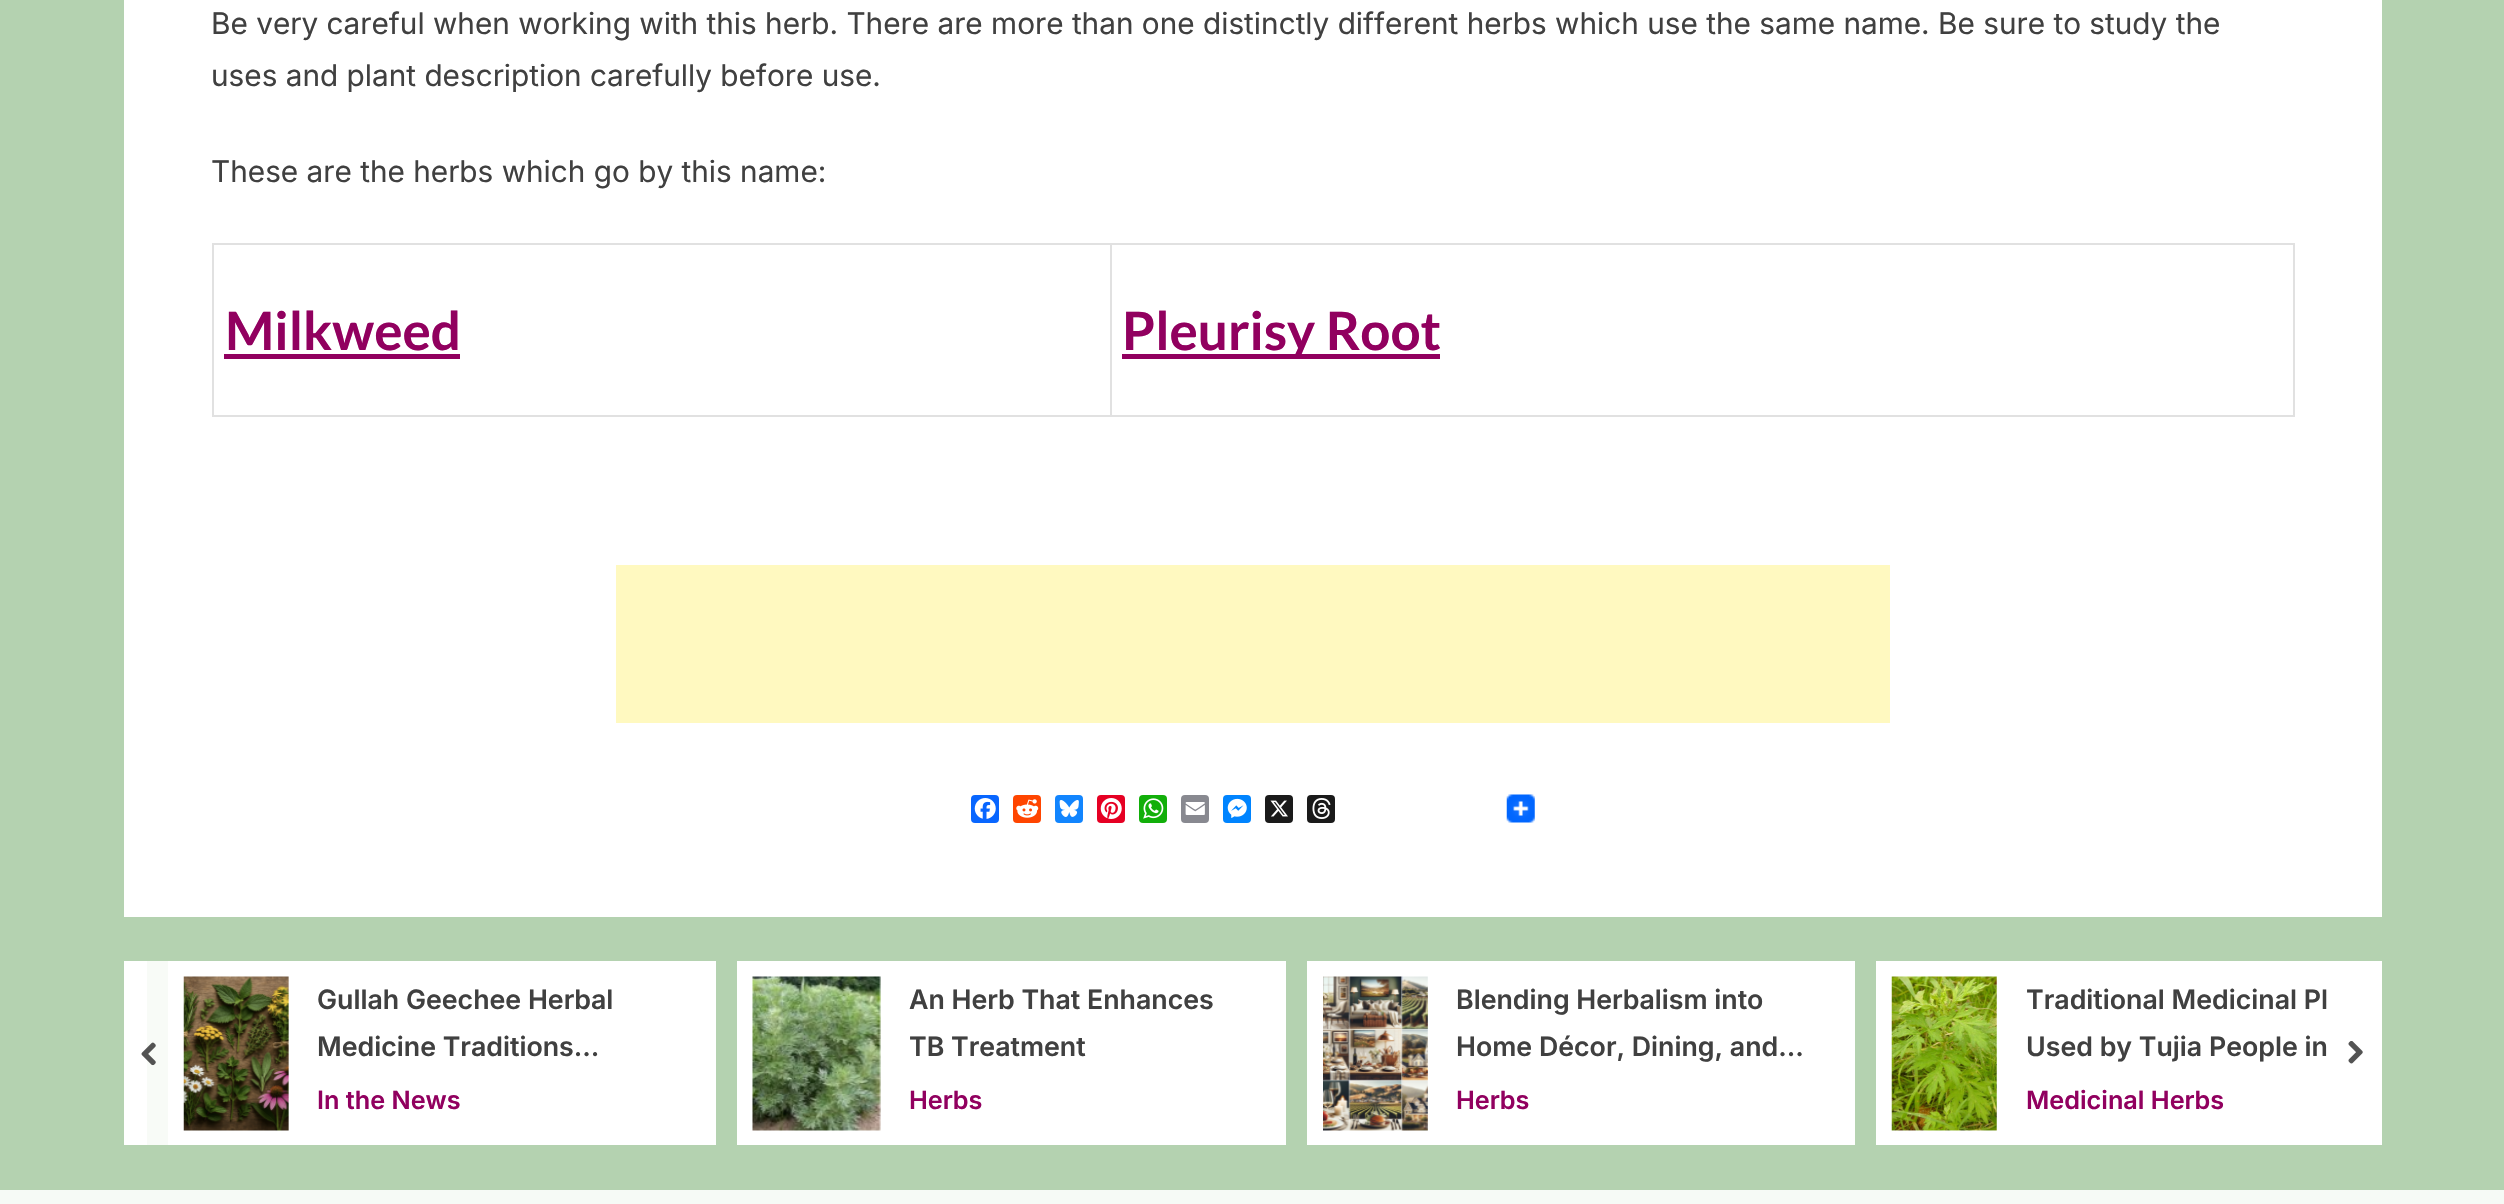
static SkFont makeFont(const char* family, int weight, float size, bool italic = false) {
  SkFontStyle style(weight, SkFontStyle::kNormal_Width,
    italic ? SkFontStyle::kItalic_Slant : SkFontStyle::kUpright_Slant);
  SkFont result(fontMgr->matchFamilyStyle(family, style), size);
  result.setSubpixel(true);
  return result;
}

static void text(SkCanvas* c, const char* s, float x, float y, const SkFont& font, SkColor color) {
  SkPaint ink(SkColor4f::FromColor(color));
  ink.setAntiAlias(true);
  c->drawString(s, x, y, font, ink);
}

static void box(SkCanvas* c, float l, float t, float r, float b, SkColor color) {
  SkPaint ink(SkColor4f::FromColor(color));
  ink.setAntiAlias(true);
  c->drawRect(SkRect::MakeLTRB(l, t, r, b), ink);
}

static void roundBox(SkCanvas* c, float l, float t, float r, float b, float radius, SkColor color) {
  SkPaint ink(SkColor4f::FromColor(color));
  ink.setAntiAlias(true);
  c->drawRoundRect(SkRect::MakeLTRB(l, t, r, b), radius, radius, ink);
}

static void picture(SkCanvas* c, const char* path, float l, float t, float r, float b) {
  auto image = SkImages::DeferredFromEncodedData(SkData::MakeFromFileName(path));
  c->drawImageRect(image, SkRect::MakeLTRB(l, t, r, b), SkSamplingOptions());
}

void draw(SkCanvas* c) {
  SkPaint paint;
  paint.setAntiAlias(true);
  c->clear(0xffb4d2b0);
  box(c, 147, 961, 168, 1145, 0xfff8fbf7);
  box(c, 124, 0, 2382, 917, 0xffffffff);
  SkFont face1 = makeFont("Inter", 400, 29.75f);
  text(c, "Be very careful when working with this herb. There are more than one distinctly different herbs which use the same name. Be sure to study the", 211, 34, face1, 0xff404040);
  text(c, "uses and plant description carefully before use.", 211, 86, face1, 0xff404040);
  text(c, "These are the herbs which go by this name:", 211, 182, face1, 0xff404040);
  box(c, 212, 243, 2294, 245, 0xffe1e1e1);
  box(c, 2293, 243, 2295, 417, 0xffe1e1e1);
  box(c, 212, 415, 2294, 417, 0xffe1e1e1);
  box(c, 212, 243, 214, 417, 0xffe1e1e1);
  SkFont face2 = makeFont("Lato", 700, 53);
  text(c, "Milkweed", 225, 350, face2, 0xff91005f);
  box(c, 224, 354, 460, 359, 0xff91005f);
  box(c, 1110, 243, 1112, 417, 0xffe1e1e1);
  box(c, 1122, 354, 1440, 359, 0xff91005f);
  text(c, "Pleurisy Root", 1122, 350, face2, 0xff91005f);
  box(c, 616, 565, 1890, 723, 0xfffff9c0);
  roundBox(c, 971, 795, 999, 823, 4, 0xff0866ff);
  picture(c, "img_01.png", 974, 798, 996, 819);
  roundBox(c, 1013, 795, 1041, 823, 4, 0xffff4500);
  picture(c, "img_02.png", 1016, 799, 1039, 818);
  roundBox(c, 1055, 795, 1083, 823, 4, 0xff1285fe);
  picture(c, "img_03.png", 1059, 800, 1079, 817);
  roundBox(c, 1097, 795, 1125, 823, 4, 0xffe60023);
  picture(c, "img_04.png", 1100, 798, 1122, 819);
  roundBox(c, 1139, 795, 1167, 823, 4, 0xff12af0a);
  picture(c, "img_05.png", 1143, 798, 1164, 819);
  roundBox(c, 1181, 795, 1209, 823, 4, 0xff888990);
  picture(c, "img_06.png", 1185, 802, 1205, 815);
  roundBox(c, 1223, 795, 1251, 823, 4, 0xff0084ff);
  picture(c, "img_07.png", 1227, 798, 1247, 818);
  roundBox(c, 1265, 795, 1293, 823, 4, 0xff1a1a1a);
  picture(c, "img_08.png", 1270, 800, 1288, 817);
  roundBox(c, 1307, 795, 1335, 823, 4, 0xff1a1a1a);
  picture(c, "img_09.png", 1312, 798, 1331, 819);
  picture(c, "img_10.png", 1506, 794, 1535, 823);
  box(c, 124, 961, 147, 1145, 0xffffffff);
  box(c, 168, 961, 716, 1145, 0xffffffff);
  picture(c, "img_11.png", 183, 976, 289, 1131);
  SkFont face3 = makeFont("Inter", 600, 26.75f);
  text(c, "Gullah Geechee Herbal", 317, 1009, face3, 0xff404040);
  text(c, "Medicine Traditions…", 317, 1056, face3, 0xff404040);
  SkFont face4 = makeFont("Inter", 600, 25.25f);
  text(c, "In the News", 317, 1109, face4, 0xff91005f);
  box(c, 737, 961, 1286, 1145, 0xffffffff);
  picture(c, "img_12.png", 752, 976, 881, 1131);
  text(c, "An Herb That Enhances", 909, 1009, face3, 0xff404040);
  text(c, "TB Treatment", 909, 1056, face3, 0xff404040);
  text(c, "Herbs", 909, 1109, face4, 0xff91005f);
  box(c, 1307, 961, 1855, 1145, 0xffffffff);
  picture(c, "img_13.png", 1323, 976, 1428, 1131);
  text(c, "Blending Herbalism into", 1456, 1009, face3, 0xff404040);
  text(c, "Home Décor, Dining, and…", 1456, 1056, face3, 0xff404040);
  text(c, "Herbs", 1456, 1109, face4, 0xff91005f);
  box(c, 1876, 961, 2382, 1145, 0xffffffff);
  picture(c, "img_14.png", 1891, 976, 1997, 1131);
  c->save();
  c->clipRect(SkRect::MakeLTRB(2027, 978, 2382, 1071));
  text(c, "Traditional Medicinal Pl", 2026, 1009, face3, 0xff404040);
  c->restore();
  text(c, "Used by Tujia People in", 2026, 1056, face3, 0xff404040);
  text(c, "Medicinal Herbs", 2026, 1109, face4, 0xff91005f);
  picture(c, "img_15.png", 141, 1042, 156, 1066);
  picture(c, "img_16.png", 2348, 1041, 2363, 1064);
  box(c, 0, 1190, 2504, 1204, 0xfff6faf6);
}
